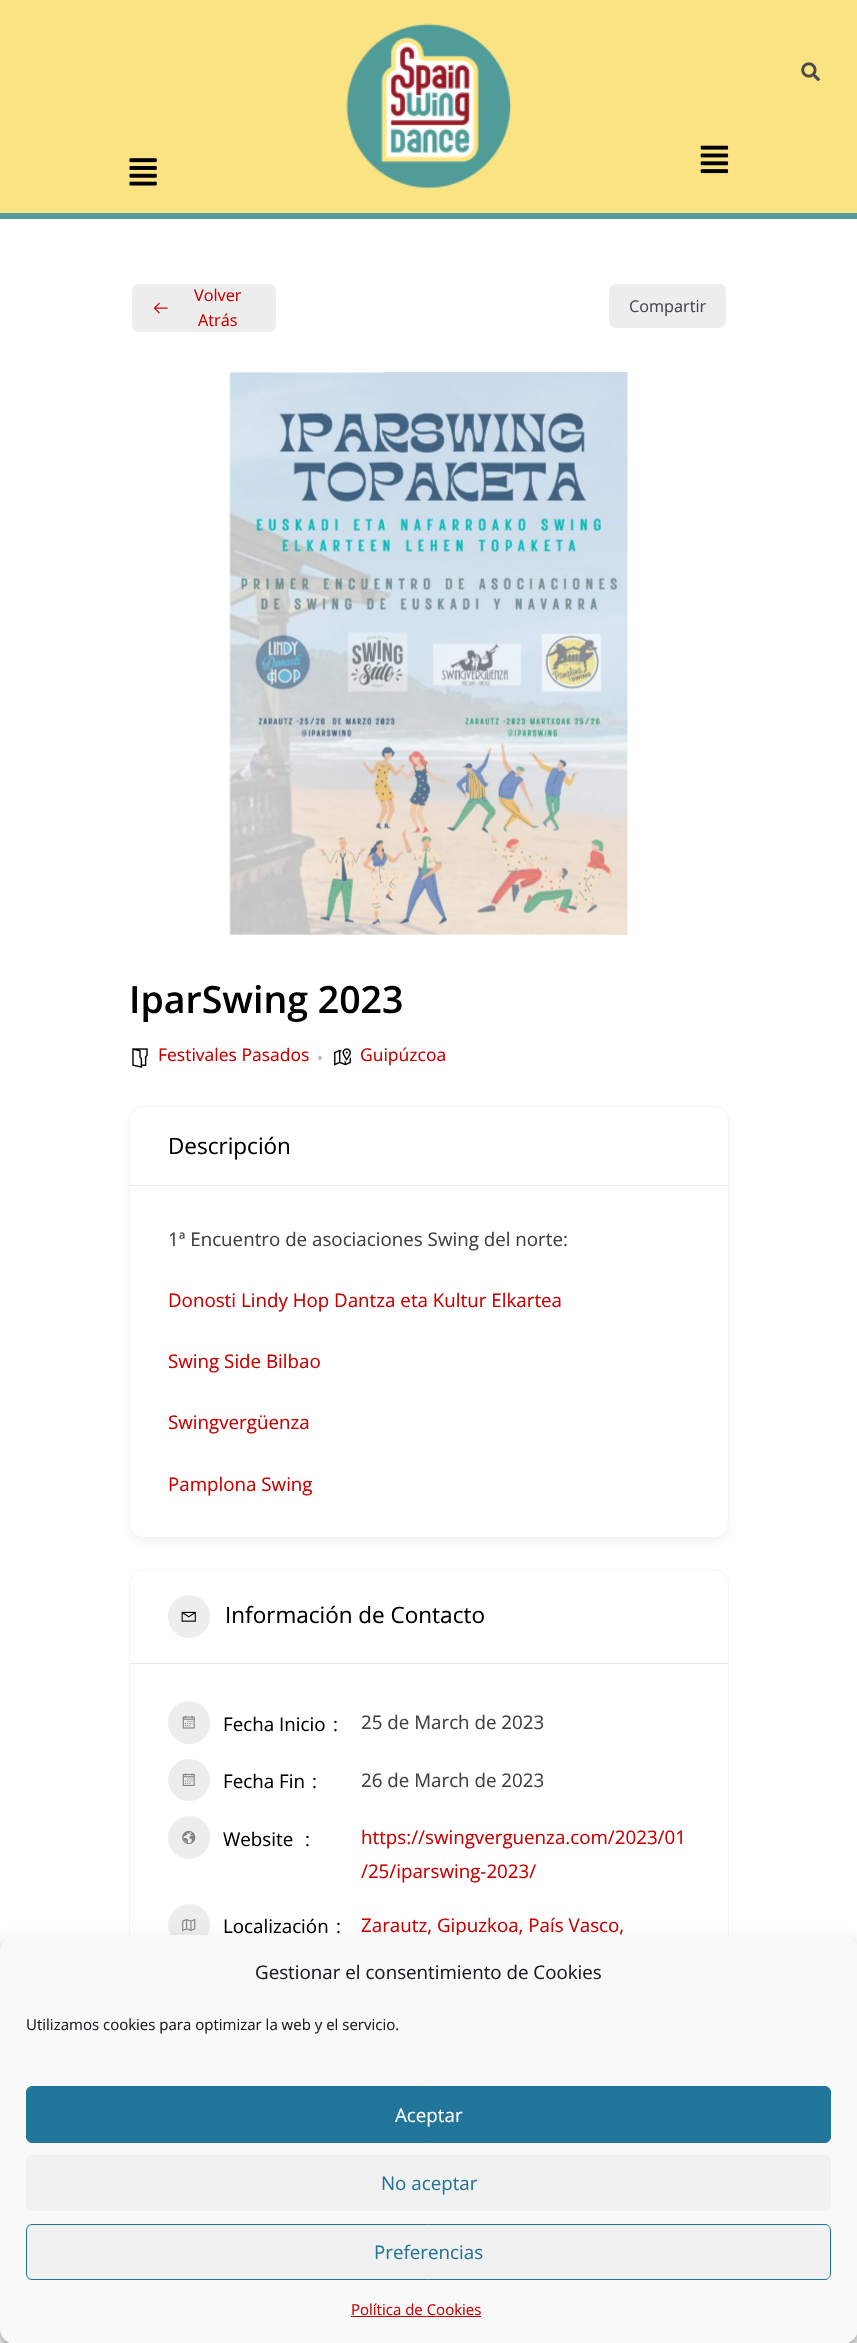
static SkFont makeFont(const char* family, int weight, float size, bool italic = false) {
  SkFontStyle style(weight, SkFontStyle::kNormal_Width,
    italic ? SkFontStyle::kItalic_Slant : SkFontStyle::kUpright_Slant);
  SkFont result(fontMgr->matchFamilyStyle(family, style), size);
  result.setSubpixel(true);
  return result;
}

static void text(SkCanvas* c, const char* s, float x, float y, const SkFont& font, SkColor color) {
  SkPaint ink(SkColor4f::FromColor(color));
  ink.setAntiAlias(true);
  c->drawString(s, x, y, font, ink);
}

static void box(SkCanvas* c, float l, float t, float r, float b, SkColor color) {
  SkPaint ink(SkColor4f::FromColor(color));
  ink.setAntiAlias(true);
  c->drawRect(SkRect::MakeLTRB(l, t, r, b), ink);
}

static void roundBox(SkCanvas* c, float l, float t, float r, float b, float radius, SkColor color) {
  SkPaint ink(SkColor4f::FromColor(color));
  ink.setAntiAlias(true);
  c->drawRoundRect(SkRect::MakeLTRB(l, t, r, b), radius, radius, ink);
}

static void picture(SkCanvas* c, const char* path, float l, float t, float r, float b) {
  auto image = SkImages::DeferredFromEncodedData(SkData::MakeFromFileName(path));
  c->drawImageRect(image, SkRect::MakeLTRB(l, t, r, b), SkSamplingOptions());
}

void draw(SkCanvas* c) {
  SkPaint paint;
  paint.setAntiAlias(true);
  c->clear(0xffffffff);
  box(c, 0, 0, 857, 213, 0xfff9e383);
  box(c, 0, 213, 857, 219, 0xff539c9b);
  picture(c, "img_01.png", 129, 158, 157, 186);
  picture(c, "img_02.png", 346, 23, 512, 189);
  picture(c, "img_03.png", 801, 62, 820, 81);
  picture(c, "img_04.png", 700, 145, 729, 174);
  paint.setColor(0xffededed);
  c->drawRoundRect(SkRect::MakeLTRB(130.5f, 282.5f, 277.5f, 333.5f), 8.5f, 8.5f, paint);
  paint.setStyle(SkPaint::kStroke_Style);
  paint.setStrokeWidth(3);
  paint.setColor(0xffffffff);
  c->drawRoundRect(SkRect::MakeLTRB(130.5f, 282.5f, 277.5f, 333.5f), 8.5f, 8.5f, paint);
  picture(c, "img_05.png", 153, 302, 168, 314);
  SkFont face1 = makeFont("Open Sans", 400, 16.25f);
  text(c, "Volver", 194, 301, face1, 0xffcc0000);
  text(c, "Atrás", 198, 326, face1, 0xffcc0000);
  paint.setStyle(SkPaint::kFill_Style);
  paint.setColor(0xffededed);
  c->drawRoundRect(SkRect::MakeLTRB(607.5f, 282.5f, 727.5f, 329.5f), 8.5f, 8.5f, paint);
  paint.setStyle(SkPaint::kStroke_Style);
  paint.setColor(0xffffffff);
  c->drawRoundRect(SkRect::MakeLTRB(607.5f, 282.5f, 727.5f, 329.5f), 8.5f, 8.5f, paint);
  text(c, "Compartir", 629, 312, face1, 0xff444752);
  picture(c, "img_06.png", 229, 372, 628, 935);
  SkFont face2 = makeFont("Open Sans", 600, 37.5f);
  text(c, "IparSwing 2023", 129, 1013, face2, 0xff000000);
  picture(c, "img_07.png", 132, 1048, 148, 1068);
  SkFont face3 = makeFont("Open Sans", 400, 17.5f);
  text(c, "Festivales Pasados", 158, 1061, face3, 0xffcc0000);
  paint.setStyle(SkPaint::kFill_Style);
  paint.setColor(0xffbcbcbc);
  c->drawCircle(320, 1058, 2, paint);
  picture(c, "img_08.png", 334, 1048, 351, 1066);
  text(c, "Guipúzcoa", 360, 1061, face3, 0xffcc0000);
  paint.setColor(0x0a000000);
  paint.setMaskFilter(SkMaskFilter::MakeBlur(kNormal_SkBlurStyle, 4));
  c->drawRoundRect(SkRect::MakeLTRB(129, 1111, 729, 1543), 15, 15, paint);
  paint.setMaskFilter(nullptr);
  paint.setColor(0xffffffff);
  c->drawRoundRect(SkRect::MakeLTRB(129.5f, 1106.5f, 728.5f, 1537.5f), 14.5f, 14.5f, paint);
  paint.setStyle(SkPaint::kStroke_Style);
  paint.setStrokeWidth(1);
  paint.setColor(0xfff5f5f5);
  c->drawRoundRect(SkRect::MakeLTRB(129.5f, 1106.5f, 728.5f, 1537.5f), 14.5f, 14.5f, paint);
  box(c, 130, 1185, 728, 1186, 0xffe9e9e9);
  SkFont face4 = makeFont("Open Sans", 400, 22.5f);
  text(c, "Descripción", 168, 1154, face4, 0xff000000);
  SkFont face5 = makeFont("Open Sans", 400, 18.75f);
  text(c, "1ª Encuentro de asociaciones Swing del norte:", 168, 1246, face5, 0xff404040);
  text(c, "Donosti Lindy Hop Dantza eta Kultur Elkartea", 168, 1307, face5, 0xffcc0000);
  text(c, "Swing Side Bilbao", 168, 1368, face5, 0xffcc0000);
  text(c, "Swingvergüenza", 168, 1429, face5, 0xffcc0000);
  text(c, "Pamplona Swing", 168, 1491, face5, 0xffcc0000);
  c->drawRoundRect(SkRect::MakeLTRB(129.5f, 1569.5f, 728.5f, 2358.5f), 14.5f, 14.5f, paint);
  box(c, 130, 1663, 728, 1664, 0xffe9e9e9);
  roundBox(c, 168, 1595, 210, 1638, 21, 0xffededed);
  picture(c, "img_09.png", 181, 1611, 196, 1622);
  text(c, "Información de Contacto", 225, 1623, face4, 0xff000000);
  roundBox(c, 168, 1701, 210, 1744, 21, 0xffededed);
  picture(c, "img_10.png", 182, 1715, 195, 1729);
  text(c, "Fecha Inicio", 223, 1731, face5, 0xff000000);
  text(c, ":", 333, 1731, face5, 0xff000000);
  text(c, "25 de March de 2023", 361, 1729, face5, 0xff404040);
  paint.setStyle(SkPaint::kFill_Style);
  paint.setColor(0xffededed);
  c->drawCircle(189, 1780, 21, paint);
  picture(c, "img_11.png", 182, 1773, 195, 1786);
  text(c, "Fecha Fin", 223, 1788, face5, 0xff000000);
  text(c, ":", 312, 1788, face5, 0xff000000);
  text(c, "26 de March de 2023", 361, 1787, face5, 0xff404040);
  roundBox(c, 168, 1816, 210, 1859, 21, 0xffededed);
  picture(c, "img_12.png", 182, 1831, 196, 1844);
  text(c, "Website", 223, 1846, face5, 0xff000000);
  text(c, ":", 305, 1846, face5, 0xff000000);
  text(c, "https://swingverguenza.com/2023/01", 361, 1844, face5, 0xffcc0000);
  text(c, "/25/iparswing-2023/", 361, 1878, face5, 0xffcc0000);
  c->drawCircle(189, 1925, 21, paint);
  picture(c, "img_13.png", 182, 1918, 196, 1932);
  text(c, "Localización", 223, 1933, face5, 0xff000000);
  text(c, ":", 336, 1933, face5, 0xff000000);
  text(c, "Zarautz, Gipuzkoa, País Vasco,", 361, 1932, face5, 0xffcc0000);
  paint.setColor(0x3b000000);
  paint.setMaskFilter(SkMaskFilter::MakeBlur(kNormal_SkBlurStyle, 4));
  c->drawRoundRect(SkRect::MakeLTRB(0, 1943, 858, 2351), 15, 15, paint);
  paint.setMaskFilter(nullptr);
  paint.setColor(0x30000000);
  paint.setMaskFilter(SkMaskFilter::MakeBlur(kNormal_SkBlurStyle, 12.5f));
  c->drawRoundRect(SkRect::MakeLTRB(0, 1948, 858, 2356), 15, 15, paint);
  paint.setMaskFilter(nullptr);
  paint.setColor(0xfff9f9f9);
  c->drawRoundRect(SkRect::MakeLTRB(0.5f, 1935.5f, 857.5f, 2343.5f), 14.5f, 14.5f, paint);
  paint.setStyle(SkPaint::kStroke_Style);
  c->drawRoundRect(SkRect::MakeLTRB(0.5f, 1935.5f, 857.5f, 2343.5f), 14.5f, 14.5f, paint);
  text(c, "Gestionar el consentimiento de Cookies", 255, 1979, face5, 0xff191e23);
  SkFont face6 = makeFont("Open Sans", 400, 15);
  text(c, "Utilizamos cookies para optimizar la web y el servicio.", 26, 2030, face6, 0xff191e23);
  paint.setStyle(SkPaint::kFill_Style);
  paint.setColor(0xff21759b);
  c->drawRoundRect(SkRect::MakeLTRB(26.5f, 2086.5f, 830.5f, 2142.5f), 5.5f, 5.5f, paint);
  paint.setStyle(SkPaint::kStroke_Style);
  c->drawRoundRect(SkRect::MakeLTRB(26.5f, 2086.5f, 830.5f, 2142.5f), 5.5f, 5.5f, paint);
  text(c, "Aceptar", 395, 2122, face5, 0xffffffff);
  roundBox(c, 26, 2155, 831, 2211, 6, 0xfff1f1f1);
  text(c, "No aceptar", 381, 2190, face5, 0xff21759b);
  paint.setStyle(SkPaint::kFill_Style);
  paint.setColor(0xfff1f1f1);
  c->drawRoundRect(SkRect::MakeLTRB(26.5f, 2224.5f, 830.5f, 2279.5f), 5.5f, 5.5f, paint);
  paint.setStyle(SkPaint::kStroke_Style);
  paint.setColor(0xff21759b);
  c->drawRoundRect(SkRect::MakeLTRB(26.5f, 2224.5f, 830.5f, 2279.5f), 5.5f, 5.5f, paint);
  text(c, "Preferencias", 374, 2259, face5, 0xff21759b);
  text(c, "Política de Cookies", 351, 2315, face6, 0xffcc0000);
  box(c, 351, 2316, 481, 2317, 0xffcc0000);
}
